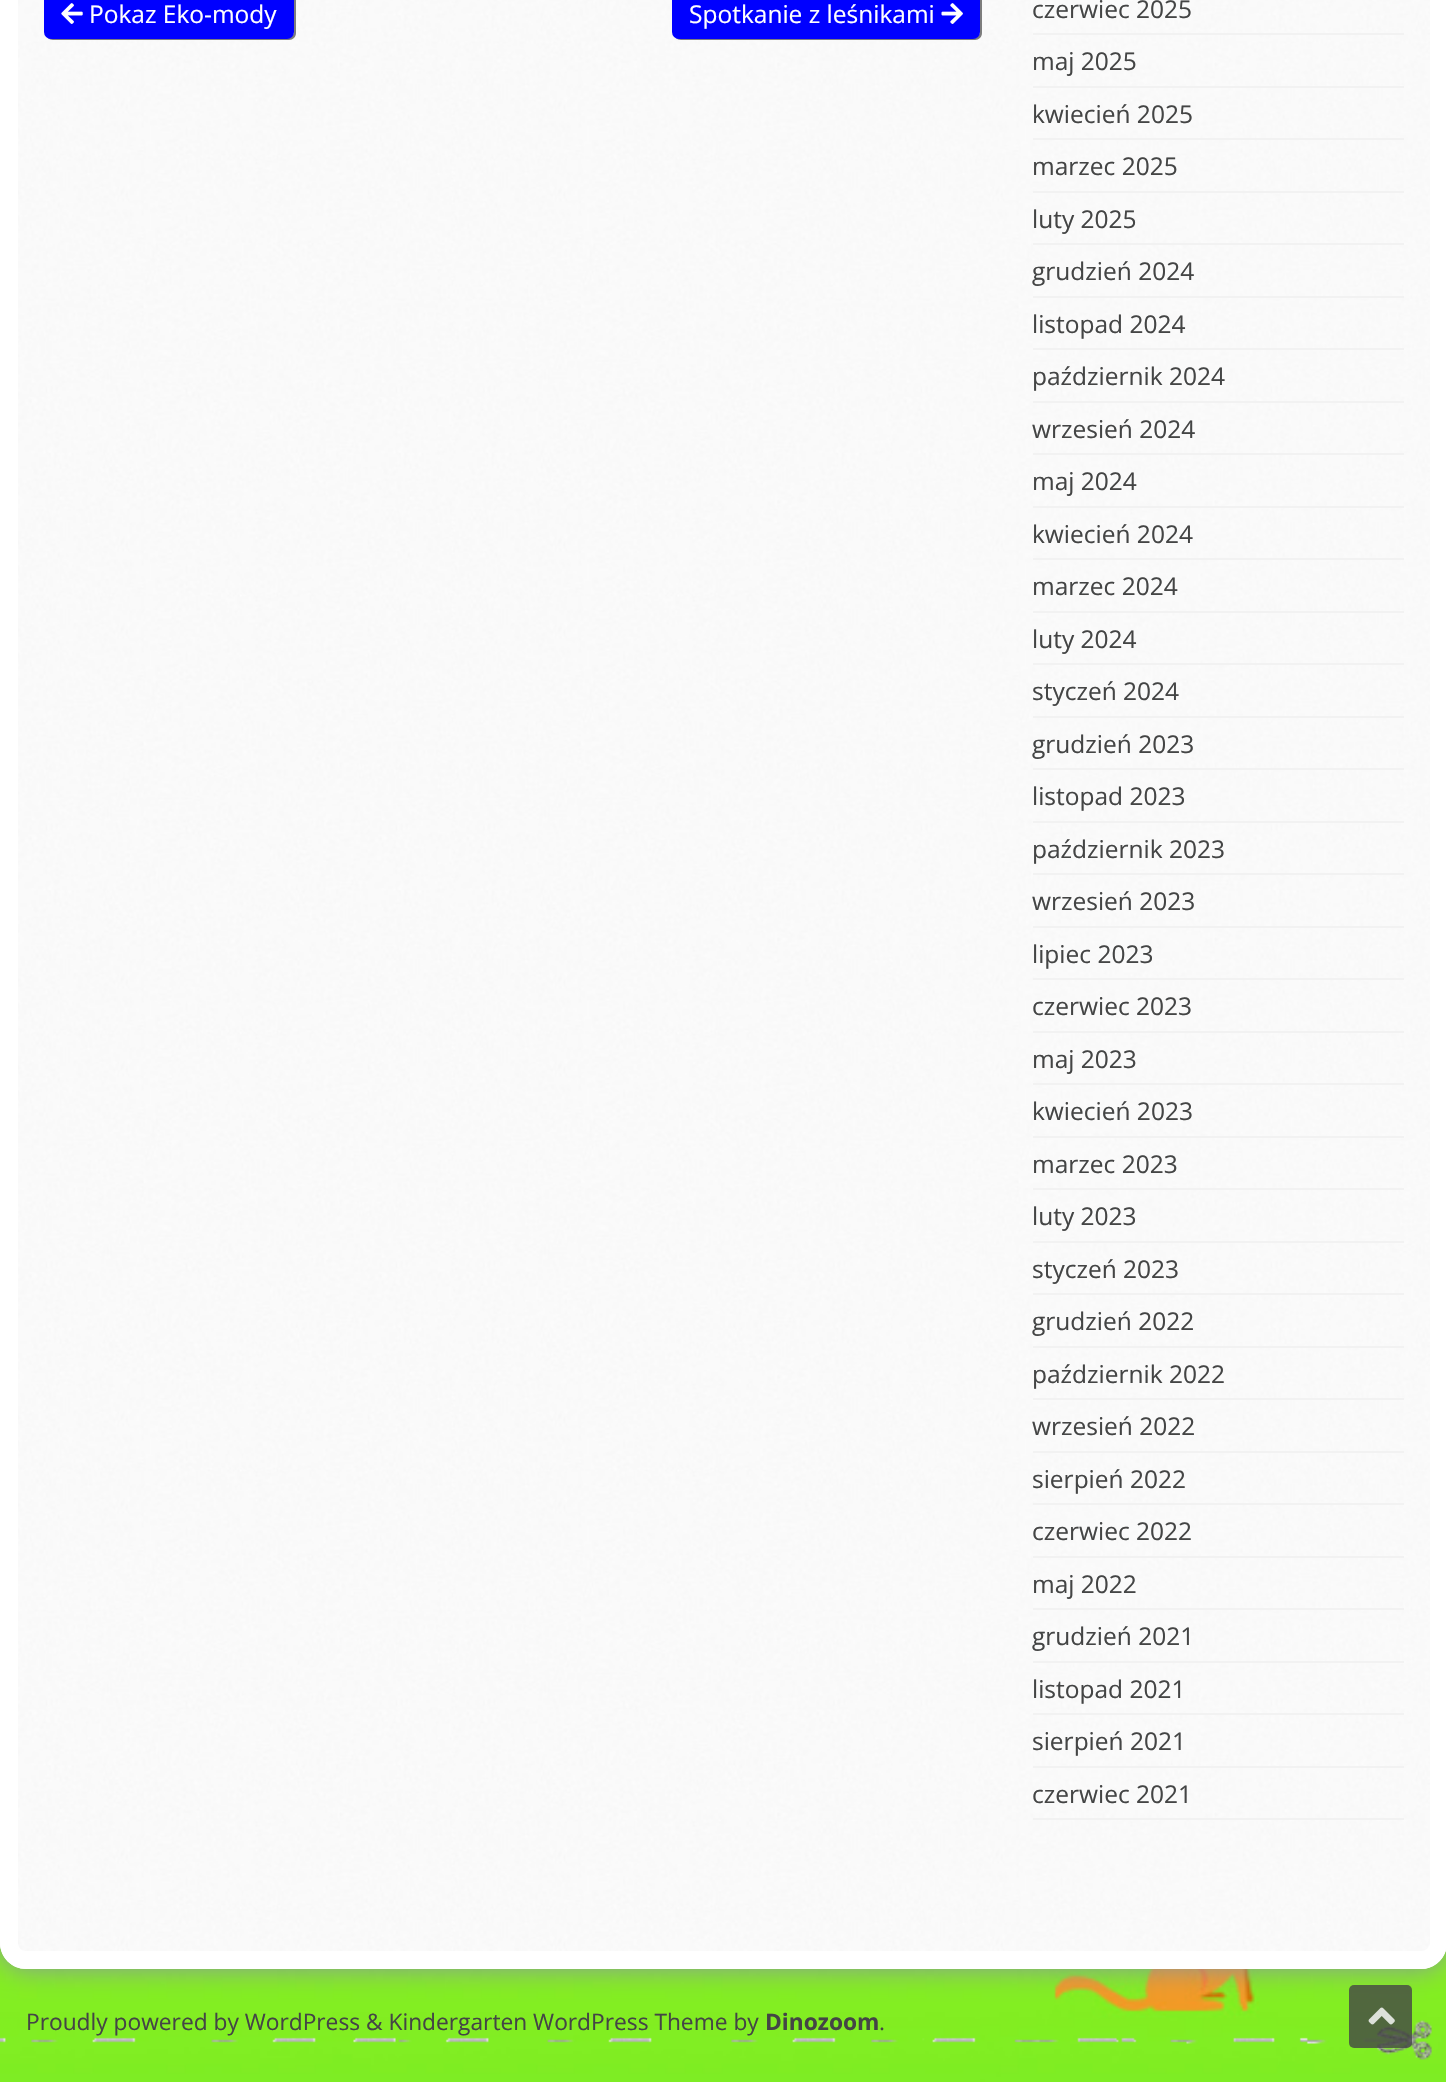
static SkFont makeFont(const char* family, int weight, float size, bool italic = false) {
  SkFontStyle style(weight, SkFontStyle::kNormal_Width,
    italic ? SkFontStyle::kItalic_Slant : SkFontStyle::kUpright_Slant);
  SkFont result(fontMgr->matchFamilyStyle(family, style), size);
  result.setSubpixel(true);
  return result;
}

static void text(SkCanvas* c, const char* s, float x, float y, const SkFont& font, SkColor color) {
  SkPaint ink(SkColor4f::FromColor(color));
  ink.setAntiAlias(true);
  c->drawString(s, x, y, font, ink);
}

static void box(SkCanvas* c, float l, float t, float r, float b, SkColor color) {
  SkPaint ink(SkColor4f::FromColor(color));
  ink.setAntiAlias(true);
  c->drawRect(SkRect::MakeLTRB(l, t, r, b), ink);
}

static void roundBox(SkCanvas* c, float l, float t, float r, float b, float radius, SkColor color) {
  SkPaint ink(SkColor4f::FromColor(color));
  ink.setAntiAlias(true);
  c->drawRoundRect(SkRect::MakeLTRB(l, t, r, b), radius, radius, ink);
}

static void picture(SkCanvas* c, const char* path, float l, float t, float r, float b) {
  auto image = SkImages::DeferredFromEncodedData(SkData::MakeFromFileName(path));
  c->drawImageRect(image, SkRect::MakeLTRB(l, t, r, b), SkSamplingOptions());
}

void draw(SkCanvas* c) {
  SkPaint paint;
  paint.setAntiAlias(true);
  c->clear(0xffffffff);
  picture(c, "img_01.png", 0, 1943, 1446, 2082);
  paint.setColor(0xff85969f);
  paint.setMaskFilter(SkMaskFilter::MakeBlur(kNormal_SkBlurStyle, 14));
  c->drawRoundRect(SkRect::MakeLTRB(0, -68, 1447, 1969), 26, 26, paint);
  paint.setMaskFilter(nullptr);
  paint.setColor(0xffffffff);
  c->drawPath(SkPathBuilder().moveTo(0, -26).lineTo(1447, -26).lineTo(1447, 1943).cubicTo(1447, 1957.5f, 1435.5f, 1969, 1421, 1969).lineTo(26, 1969).cubicTo(11.5f, 1969, 0, 1957.5f, 0, 1943).close().detach(), paint);
  picture(c, "img_02.png", 0, 0, 1446, 1968);
  c->drawPath(SkPathBuilder(SkPathFillType::kEvenOdd).moveTo(0, -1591).lineTo(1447, -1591).lineTo(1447, 1942).cubicTo(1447, 1957, 1435, 1969, 1421, 1969).lineTo(26, 1969).cubicTo(12, 1969, 0, 1957, 0, 1942).close().moveTo(18, -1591).lineTo(1430, -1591).lineTo(1430, 1942).cubicTo(1430, 1947, 1426, 1951, 1421, 1951).lineTo(26, 1951).cubicTo(21, 1951, 18, 1947, 18, 1942).close().detach(), paint);
  paint.setColor(0xff7d7d7d);
  c->drawPath(SkPathBuilder().moveTo(48, 38).cubicTo(49, 39, 51, 40, 53, 40).lineTo(289, 40).cubicTo(293, 40, 296, 37, 296, 33).lineTo(296, -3).cubicTo(296, -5, 295, -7, 293, -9).lineTo(294, -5).lineTo(294, 32).cubicTo(294, 35, 291, 38, 287, 38).lineTo(51, 38).close().detach(), paint);
  roundBox(c, 44, -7, 294, 39, 7, 0xff0000ff);
  picture(c, "img_03.png", 61, 3, 83, 24);
  SkFont face1 = makeFont("Open Sans", 400, 24.5f);
  text(c, "Pokaz Eko-mody", 89, 23, face1, 0xffffffff);
  c->drawPath(SkPathBuilder().moveTo(676, 38).cubicTo(677, 39, 679, 40, 681, 40).lineTo(975, 40).cubicTo(979, 40, 982, 37, 982, 33).lineTo(982, -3).cubicTo(982, -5, 981, -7, 979, -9).lineTo(980, -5).lineTo(980, 32).cubicTo(980, 35, 977, 38, 973, 38).lineTo(679, 38).close().detach(), paint);
  roundBox(c, 672, -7, 980, 39, 7, 0xff0000ff);
  text(c, "Spotkanie z leśnikami", 689, 23, face1, 0xffffffff);
  picture(c, "img_04.png", 941, 3, 963, 24);
  box(c, 1033, 33, 1404, 35, 0xfff2f2f2);
  text(c, "czerwiec 2025", 1032, 18, face1, 0xff444545);
  box(c, 1033, 86, 1404, 88, 0xfff2f2f2);
  text(c, "maj 2025", 1032, 70, face1, 0xff444545);
  box(c, 1033, 138, 1404, 140, 0xfff2f2f2);
  text(c, "kwiecień 2025", 1032, 123, face1, 0xff444545);
  box(c, 1033, 191, 1404, 193, 0xfff2f2f2);
  text(c, "marzec 2025", 1032, 175, face1, 0xff444545);
  box(c, 1033, 243, 1404, 245, 0xfff2f2f2);
  text(c, "luty 2025", 1032, 228, face1, 0xff444545);
  box(c, 1033, 296, 1404, 298, 0xfff2f2f2);
  text(c, "grudzień 2024", 1032, 280, face1, 0xff444545);
  box(c, 1033, 348, 1404, 350, 0xfff2f2f2);
  text(c, "listopad 2024", 1032, 333, face1, 0xff444545);
  box(c, 1033, 401, 1404, 403, 0xfff2f2f2);
  text(c, "październik 2024", 1032, 385, face1, 0xff444545);
  box(c, 1033, 453, 1404, 455, 0xfff2f2f2);
  text(c, "wrzesień 2024", 1032, 438, face1, 0xff444545);
  box(c, 1033, 506, 1404, 508, 0xfff2f2f2);
  text(c, "maj 2024", 1032, 490, face1, 0xff444545);
  box(c, 1033, 558, 1404, 560, 0xfff2f2f2);
  text(c, "kwiecień 2024", 1032, 543, face1, 0xff444545);
  box(c, 1033, 611, 1404, 613, 0xfff2f2f2);
  text(c, "marzec 2024", 1032, 595, face1, 0xff444545);
  box(c, 1033, 663, 1404, 665, 0xfff2f2f2);
  text(c, "luty 2024", 1032, 648, face1, 0xff444545);
  box(c, 1033, 716, 1404, 718, 0xfff2f2f2);
  text(c, "styczeń 2024", 1032, 700, face1, 0xff444545);
  box(c, 1033, 768, 1404, 770, 0xfff2f2f2);
  text(c, "grudzień 2023", 1032, 753, face1, 0xff444545);
  box(c, 1033, 821, 1404, 823, 0xfff2f2f2);
  text(c, "listopad 2023", 1032, 805, face1, 0xff444545);
  box(c, 1033, 873, 1404, 875, 0xfff2f2f2);
  text(c, "październik 2023", 1032, 858, face1, 0xff444545);
  box(c, 1033, 926, 1404, 928, 0xfff2f2f2);
  text(c, "wrzesień 2023", 1032, 910, face1, 0xff444545);
  box(c, 1033, 978, 1404, 980, 0xfff2f2f2);
  text(c, "lipiec 2023", 1032, 963, face1, 0xff444545);
  box(c, 1033, 1031, 1404, 1033, 0xfff2f2f2);
  text(c, "czerwiec 2023", 1032, 1015, face1, 0xff444545);
  box(c, 1033, 1083, 1404, 1085, 0xfff2f2f2);
  text(c, "maj 2023", 1032, 1068, face1, 0xff444545);
  box(c, 1033, 1136, 1404, 1138, 0xfff2f2f2);
  text(c, "kwiecień 2023", 1032, 1120, face1, 0xff444545);
  box(c, 1033, 1188, 1404, 1190, 0xfff2f2f2);
  text(c, "marzec 2023", 1032, 1173, face1, 0xff444545);
  box(c, 1033, 1241, 1404, 1243, 0xfff2f2f2);
  text(c, "luty 2023", 1032, 1225, face1, 0xff444545);
  box(c, 1033, 1293, 1404, 1295, 0xfff2f2f2);
  text(c, "styczeń 2023", 1032, 1278, face1, 0xff444545);
  box(c, 1033, 1346, 1404, 1348, 0xfff2f2f2);
  text(c, "grudzień 2022", 1032, 1330, face1, 0xff444545);
  box(c, 1033, 1398, 1404, 1400, 0xfff2f2f2);
  text(c, "październik 2022", 1032, 1383, face1, 0xff444545);
  box(c, 1033, 1451, 1404, 1453, 0xfff2f2f2);
  text(c, "wrzesień 2022", 1032, 1435, face1, 0xff444545);
  box(c, 1033, 1503, 1404, 1505, 0xfff2f2f2);
  text(c, "sierpień 2022", 1032, 1488, face1, 0xff444545);
  box(c, 1033, 1556, 1404, 1558, 0xfff2f2f2);
  text(c, "czerwiec 2022", 1032, 1540, face1, 0xff444545);
  box(c, 1033, 1608, 1404, 1610, 0xfff2f2f2);
  text(c, "maj 2022", 1032, 1593, face1, 0xff444545);
  box(c, 1033, 1661, 1404, 1663, 0xfff2f2f2);
  text(c, "grudzień 2021", 1032, 1645, face1, 0xff444545);
  box(c, 1033, 1713, 1404, 1715, 0xfff2f2f2);
  text(c, "listopad 2021", 1032, 1698, face1, 0xff444545);
  box(c, 1033, 1766, 1404, 1768, 0xfff2f2f2);
  text(c, "sierpień 2021", 1032, 1750, face1, 0xff444545);
  box(c, 1033, 1818, 1404, 1820, 0xfff2f2f2);
  text(c, "czerwiec 2021", 1032, 1803, face1, 0xff444545);
  picture(c, "img_05.png", 0, 2020, 1432, 2060);
  SkFont face2 = makeFont("Open Sans", 400, 22.75f);
  text(c, "Proudly powered by WordPress & Kindergarten WordPress Theme by", 26, 2030, face2, 0xff444545);
  SkFont face3 = makeFont("Open Sans", 700, 22.75f);
  text(c, "Dinozoom", 765, 2030, face3, 0xff444545);
  text(c, ".", 879, 2030, face2, 0xff444545);
  roundBox(c, 1349, 1985, 1412, 2048, 5, 0xcc444545);
  picture(c, "img_06.png", 1368, 2007, 1395, 2025);
}
